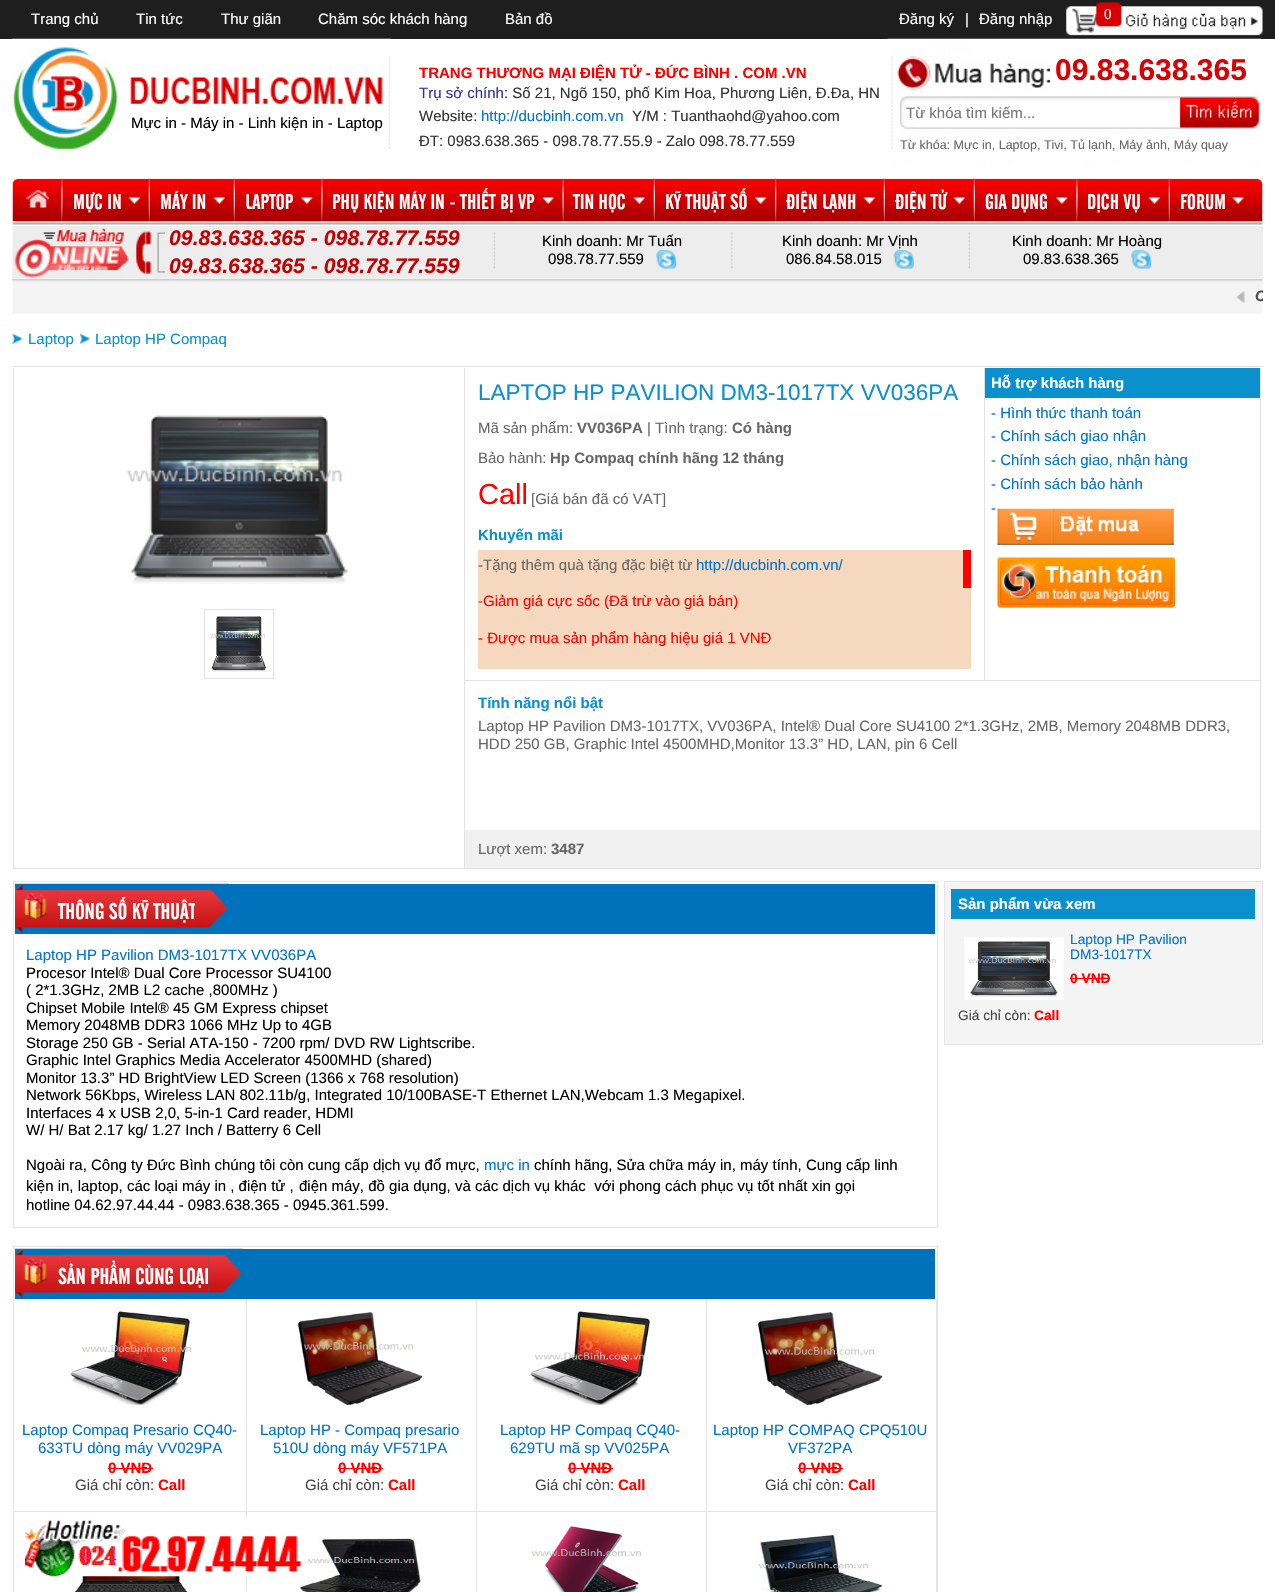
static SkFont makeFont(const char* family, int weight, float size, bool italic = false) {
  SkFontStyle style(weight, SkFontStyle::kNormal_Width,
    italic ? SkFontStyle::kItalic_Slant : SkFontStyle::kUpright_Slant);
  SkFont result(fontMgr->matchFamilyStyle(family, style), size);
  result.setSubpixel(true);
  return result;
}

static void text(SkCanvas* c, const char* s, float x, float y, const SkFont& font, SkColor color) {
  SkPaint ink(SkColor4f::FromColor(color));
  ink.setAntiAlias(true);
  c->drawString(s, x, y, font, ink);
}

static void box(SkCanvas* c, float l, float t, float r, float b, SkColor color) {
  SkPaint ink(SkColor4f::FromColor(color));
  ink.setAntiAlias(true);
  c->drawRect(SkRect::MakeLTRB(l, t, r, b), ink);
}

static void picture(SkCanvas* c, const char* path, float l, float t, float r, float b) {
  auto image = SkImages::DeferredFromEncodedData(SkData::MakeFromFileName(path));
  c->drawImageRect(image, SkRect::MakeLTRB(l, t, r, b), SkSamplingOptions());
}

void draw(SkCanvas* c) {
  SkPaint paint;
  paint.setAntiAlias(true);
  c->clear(0xffffffff);
  box(c, 0, 0, 1275, 39, 0xff1e1e1e);
  SkFont face1 = makeFont("Liberation Sans", 400, 15);
  text(c, "Trang chủ", 31, 24, face1, 0xffffffff);
  text(c, "Tin tức", 136, 24, face1, 0xffffffff);
  text(c, "Thư giãn", 221, 24, face1, 0xffffffff);
  text(c, "Chăm sóc khách hàng", 318, 24, face1, 0xffffffff);
  text(c, "Bản đồ", 505, 24, face1, 0xffffffff);
  text(c, "Đăng ký", 899, 24, face1, 0xffffffff);
  text(c, "|", 965, 24, face1, 0xffffffff);
  text(c, "Đăng nhập", 979, 24, face1, 0xffffffff);
  picture(c, "img_01.png", 1066, 2, 1263, 36);
  SkFont face2 = makeFont("Liberation Serif", 400, 15);
  text(c, "0", 1104, 19, face2, 0xffffffff);
  picture(c, "img_02.png", 12, 38, 392, 149);
  text(c, "Mực in - Máy in - Linh kiện in - Laptop", 131, 128, face1, 0xff000000);
  SkFont face3 = makeFont("Liberation Sans", 700, 15);
  text(c, "TRANG THƯƠNG MẠI ĐIỆN TỬ - ĐỨC BÌNH . COM .VN", 419, 78, face3, 0xffff0000);
  text(c, "Trụ sở chính", 419, 98, face1, 0xff333399);
  text(c, ": Số 21, Ngõ 150, phố Kim Hoa, Phương Liên, Đ.Đa, HN", 504, 98, face1, 0xff333333);
  text(c, "Website:", 419, 121, face1, 0xff333333);
  text(c, "http://ducbinh.com.vn", 481, 121, face1, 0xff0073cc);
  text(c, "Y/M : Tuanthaohd@yahoo.com", 632, 121, face1, 0xff333333);
  text(c, "ĐT: 0983.638.365 - 098.78.77.55.9 - Zalo 098.78.77.559", 419, 146, face1, 0xff333333);
  picture(c, "img_03.png", 887, 38, 1262, 166);
  SkFont face4 = makeFont("Liberation Sans", 700, 30);
  text(c, "09.83.638.365", 1055, 80, face4, 0xffd90104);
  text(c, "Từ khóa tìm kiếm...", 906, 118, face1, 0xff757575);
  SkFont face5 = makeFont("Liberation Sans", 400, 12.5f);
  text(c, "Từ khóa: Mực in, Laptop, Tivi, Tủ lạnh, Máy ảnh, Máy quay", 900, 149, face5, 0xff676767);
  picture(c, "img_04.png", 12, 178, 1263, 225);
  picture(c, "img_05.png", 61, 178, 63, 223);
  picture(c, "img_06.png", 25, 189, 50, 210);
  picture(c, "img_07.png", 148, 178, 150, 223);
  picture(c, "img_08.png", 128, 197, 140, 204);
  SkFont face6 = makeFont("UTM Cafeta", 400, 21.25f);
  text(c, "MỰC IN", 73, 209, face6, 0xffffffff);
  picture(c, "img_09.png", 233, 178, 235, 223);
  picture(c, "img_10.png", 213, 197, 225, 204);
  text(c, "MÁY IN", 160, 209, face6, 0xffffffff);
  picture(c, "img_05.png", 321, 178, 323, 223);
  picture(c, "img_11.png", 301, 197, 313, 204);
  text(c, "LAPTOP", 245, 209, face6, 0xffffffff);
  picture(c, "img_12.png", 562, 178, 564, 223);
  picture(c, "img_13.png", 542, 197, 554, 204);
  text(c, "PHỤ KIỆN MÁY IN - THIẾT BỊ VP", 332, 209, face6, 0xffffffff);
  picture(c, "img_09.png", 653, 178, 655, 223);
  picture(c, "img_10.png", 633, 197, 645, 204);
  text(c, "TIN HỌC", 573, 209, face6, 0xffffffff);
  picture(c, "img_14.png", 775, 178, 777, 223);
  picture(c, "img_15.png", 755, 197, 767, 204);
  text(c, "KỸ THUẬT SỐ", 665, 209, face6, 0xffffffff);
  picture(c, "img_09.png", 883, 178, 885, 223);
  picture(c, "img_16.png", 863, 197, 875, 204);
  text(c, "ĐIỆN LẠNH", 786, 209, face6, 0xffffffff);
  picture(c, "img_09.png", 973, 178, 975, 223);
  picture(c, "img_16.png", 953, 197, 965, 204);
  text(c, "ĐIỆN TỬ", 895, 209, face6, 0xffffffff);
  picture(c, "img_17.png", 1076, 178, 1078, 223);
  picture(c, "img_18.png", 1056, 197, 1068, 204);
  text(c, "GIA DỤNG", 985, 209, face6, 0xffffffff);
  picture(c, "img_07.png", 1168, 178, 1170, 223);
  picture(c, "img_08.png", 1148, 197, 1160, 204);
  text(c, "DỊCH VỤ", 1087, 209, face6, 0xffffffff);
  picture(c, "img_19.png", 1232, 197, 1244, 204);
  text(c, "FORUM", 1180, 209, face6, 0xffffffff);
  box(c, 13, 226, 1263, 278, 0xffededed);
  picture(c, "img_20.png", 12, 226, 165, 278);
  SkFont face7 = makeFont("Liberation Sans", 700, 21.25f, true);
  text(c, "09.83.638.365 - 098.78.77.559", 169, 245, face7, 0xffc20102);
  text(c, "09.83.638.365 - 098.78.77.559", 169, 273, face7, 0xffc20102);
  picture(c, "img_21.png", 493, 232, 495, 269);
  text(c, "Kinh doanh: Mr Tuấn", 542, 246, face1, 0xff000000);
  text(c, "098.78.77.559", 548, 264, face1, 0xff000000);
  picture(c, "img_22.png", 656, 250, 677, 269);
  picture(c, "img_23.png", 731, 232, 733, 269);
  text(c, "Kinh doanh: Mr Vịnh", 782, 246, face1, 0xff000000);
  text(c, "086.84.58.015", 786, 264, face1, 0xff000000);
  picture(c, "img_24.png", 893, 250, 914, 269);
  picture(c, "img_21.png", 968, 232, 970, 269);
  text(c, "Kinh doanh: Mr Hoàng", 1012, 246, face1, 0xff000000);
  text(c, "09.83.638.365", 1023, 264, face1, 0xff000000);
  picture(c, "img_22.png", 1131, 250, 1152, 269);
  picture(c, "img_25.png", 12, 278, 1263, 314);
  picture(c, "img_26.png", 1236, 291, 1245, 303);
  c->save();
  c->clipRect(SkRect::MakeLTRB(25, 279, 1263, 314));
  SkFont face8 = makeFont("Liberation Sans", 700, 15, true);
  text(c, "C", 1255, 301, face8, 0xff4f4f4f);
  c->restore();
  box(c, 13, 366, 1263, 367, 0xffe2e2e2);
  picture(c, "img_27.png", 12, 333, 23, 344);
  text(c, "Laptop", 28, 344, face1, 0xff0a90cc);
  picture(c, "img_28.png", 80, 333, 90, 344);
  text(c, "Laptop HP Compaq", 95, 344, face1, 0xff0a90cc);
  box(c, 464, 368, 465, 869, 0xffe2e2e2);
  box(c, 13, 868, 465, 869, 0xffe2e2e2);
  box(c, 13, 368, 14, 869, 0xffe2e2e2);
  picture(c, "img_29.png", 126, 415, 348, 584);
  paint.setStyle(SkPaint::kStroke_Style);
  paint.setStrokeWidth(1);
  paint.setColor(0xffe2e2e2);
  c->drawRect(SkRect::MakeLTRB(204.5f, 609.5f, 273.5f, 678.5f), paint);
  picture(c, "img_30.png", 210, 616, 267, 672);
  box(c, 1260, 368, 1261, 869, 0xffe2e2e2);
  box(c, 465, 868, 1261, 869, 0xffe2e2e2);
  box(c, 465, 680, 1260, 681, 0xffe2e2e2);
  box(c, 984, 368, 985, 680, 0xffe2e2e2);
  SkFont face9 = makeFont("Liberation Sans", 400, 22.5f);
  text(c, "LAPTOP HP PAVILION DM3-1017TX VV036PA", 478, 400, face9, 0xff0a90cc);
  text(c, "Mã sản phẩm:", 478, 433, face1, 0xff676767);
  text(c, "VV036PA", 577, 433, face3, 0xff676767);
  text(c, "| Tình trạng:", 647, 433, face1, 0xff676767);
  text(c, "Có hàng", 732, 433, face3, 0xff676767);
  text(c, "Bảo hành:", 478, 463, face1, 0xff676767);
  text(c, "Hp Compaq chính hãng 12 tháng", 550, 463, face3, 0xff676767);
  SkFont face10 = makeFont("Liberation Sans", 400, 29);
  text(c, "Call", 478, 504, face10, 0xffff0000);
  text(c, "[Giá bán đã có VAT]", 531, 504, face1, 0xff676767);
  text(c, "Khuyến mãi", 478, 540, face3, 0xff0a90cc);
  box(c, 478, 550, 971, 669, 0xfff5d8be);
  text(c, "-Tặng thêm quà tặng đặc biệt từ", 478, 570, face1, 0xff676767);
  text(c, "http://ducbinh.com.vn/", 696, 570, face1, 0xff0073cc);
  text(c, "-", 478, 606, face1, 0xff676767);
  text(c, "Giảm giá cực sốc (Đã trừ vào giá bán)", 483, 606, face1, 0xffff0000);
  text(c, "- Được mua sản phẩm hàng hiệu giá 1 VNĐ", 478, 643, face1, 0xffff0000);
  box(c, 963, 550, 971, 588, 0xffff0000);
  box(c, 985, 368, 1260, 398, 0xff0a90cc);
  text(c, "Hỗ trợ khách hàng", 991, 388, face3, 0xffffffff);
  text(c, "- Hình thức thanh toán", 991, 418, face1, 0xff0073cc);
  text(c, "- Chính sách giao nhận", 991, 441, face1, 0xff0073cc);
  text(c, "- Chính sách giao, nhận hàng", 991, 465, face1, 0xff0073cc);
  text(c, "- Chính sách bảo hành", 991, 489, face1, 0xff0073cc);
  text(c, "-", 991, 513, face1, 0xff0073cc);
  picture(c, "img_31.png", 997, 508, 1174, 545);
  picture(c, "img_32.png", 997, 557, 1175, 608);
  text(c, "Tính năng nổi bật", 478, 708, face3, 0xff0a90cc);
  text(c, "Laptop HP Pavilion DM3-1017TX, VV036PA, Intel® Dual Core SU4100 2*1.3GHz, 2MB, Memory 2048MB DDR3,", 478, 731, face1, 0xff676767);
  text(c, "HDD 250 GB, Graphic Intel 4500MHD,Monitor 13.3” HD, LAN, pin 6 Cell", 478, 749, face1, 0xff676767);
  box(c, 465, 830, 1260, 868, 0xfff1f1f1);
  text(c, "Lượt xem:", 478, 854, face1, 0xff676767);
  text(c, "3487", 551, 854, face3, 0xff676767);
  paint.setColor(0xffe5e5e5);
  c->drawRect(SkRect::MakeLTRB(13.5f, 881.5f, 937.5f, 1227.5f), paint);
  box(c, 15, 884, 935, 934, 0xff0072bb);
  picture(c, "img_33.png", 15, 883, 58, 933);
  picture(c, "img_34.png", 57, 883, 195, 928);
  SkFont face11 = makeFont("UTM Cafeta", 400, 22.5f);
  text(c, "THÔNG SỐ KỸ THUẬT", 58, 919, face11, 0xffffffff);
  picture(c, "img_35.png", 195, 883, 229, 928);
  text(c, "Laptop HP Pavilion DM3-1017TX VV036PA", 26, 960, face1, 0xff0073cc);
  text(c, "Procesor Intel® Dual Core Processor SU4100", 26, 978, face1, 0xff000000);
  text(c, "( 2*1.3GHz, 2MB L2 cache ,800MHz )", 26, 995, face1, 0xff000000);
  text(c, "Chipset Mobile Intel® 45 GM Express chipset", 26, 1013, face1, 0xff000000);
  text(c, "Memory 2048MB DDR3 1066 MHz Up to 4GB", 26, 1030, face1, 0xff000000);
  text(c, "Storage 250 GB - Serial ATA-150 - 7200 rpm/ DVD RW Lightscribe.", 26, 1048, face1, 0xff000000);
  text(c, "Graphic Intel Graphics Media Accelerator 4500MHD (shared)", 26, 1065, face1, 0xff000000);
  text(c, "Monitor 13.3” HD BrightView LED Screen (1366 x 768 resolution)", 26, 1083, face1, 0xff000000);
  text(c, "Network 56Kbps, Wireless LAN 802.11b/g, Integrated 10/100BASE-T Ethernet LAN,Webcam 1.3 Megapixel.", 26, 1100, face1, 0xff000000);
  text(c, "Interfaces 4 x USB 2,0, 5-in-1 Card reader, HDMI", 26, 1118, face1, 0xff000000);
  text(c, "W/ H/ Bat 2.17 kg/ 1.27 Inch / Batterry 6 Cell", 26, 1135, face1, 0xff000000);
  text(c, "Ngoài ra, Công ty Đức Bình chúng tôi còn cung cấp dịch vụ đổ mực,", 26, 1170, face1, 0xff000000);
  text(c, "mực in", 484, 1170, face1, 0xff0073cc);
  text(c, "chính hãng, Sửa chữa máy in, máy tính, Cung cấp linh", 534, 1170, face1, 0xff000000);
  text(c, "kiện in, laptop, các loại máy in , điện tử ,", 26, 1191, face1, 0xff000000);
  text(c, "điện máy, đồ gia dụng, và các dịch vụ khác  với phong cách phục vụ tốt nhất xin gọi", 299, 1191, face1, 0xff000000);
  text(c, "hotline 04.62.97.44.44 - 0983.638.365 - 0945.361.599.", 26, 1210, face1, 0xff000000);
  c->drawRect(SkRect::MakeLTRB(13.5f, 1246.5f, 937.5f, 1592.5f), paint);
  box(c, 15, 1249, 935, 1299, 0xff0072bb);
  picture(c, "img_33.png", 15, 1248, 58, 1298);
  picture(c, "img_36.png", 57, 1248, 209, 1293);
  text(c, "SẢN PHẨM CÙNG LOẠI", 58, 1284, face11, 0xffffffff);
  picture(c, "img_37.png", 208, 1248, 243, 1293);
  box(c, 246, 1299, 247, 1513, 0xffe5e5e5);
  box(c, 14, 1511, 248, 1512, 0xffe5e5e5);
  picture(c, "img_38.png", 70, 1311, 192, 1405);
  text(c, "Laptop Compaq Presario CQ40-", 22, 1435, face1, 0xff0073cc);
  text(c, "633TU dòng máy VV029PA", 38, 1453, face1, 0xff0073cc);
  text(c, "0 VNĐ", 108, 1473, face3, 0xffff0000);
  box(c, 108, 1468, 153, 1469, 0xffff0000);
  text(c, "Giá chỉ còn:", 75, 1490, face1, 0xff454545);
  text(c, "Call", 158, 1490, face3, 0xffff0000);
  box(c, 476, 1299, 477, 1513, 0xffe5e5e5);
  box(c, 244, 1511, 478, 1512, 0xffe5e5e5);
  picture(c, "img_39.png", 297, 1312, 423, 1405);
  text(c, "Laptop HP - Compaq presario", 260, 1435, face1, 0xff0073cc);
  text(c, "510U dòng máy VF571PA", 273, 1453, face1, 0xff0073cc);
  text(c, "0 VNĐ", 338, 1473, face3, 0xffff0000);
  box(c, 338, 1468, 383, 1469, 0xffff0000);
  text(c, "Giá chỉ còn:", 305, 1490, face1, 0xff454545);
  text(c, "Call", 388, 1490, face3, 0xffff0000);
  box(c, 706, 1299, 707, 1513, 0xffe5e5e5);
  box(c, 474, 1511, 708, 1512, 0xffe5e5e5);
  picture(c, "img_40.png", 530, 1311, 650, 1405);
  text(c, "Laptop HP Compaq CQ40-", 500, 1435, face1, 0xff0073cc);
  text(c, "629TU mã sp VV025PA", 510, 1453, face1, 0xff0073cc);
  text(c, "0 VNĐ", 568, 1473, face3, 0xffff0000);
  box(c, 568, 1468, 613, 1469, 0xffff0000);
  text(c, "Giá chỉ còn:", 535, 1490, face1, 0xff454545);
  text(c, "Call", 618, 1490, face3, 0xffff0000);
  box(c, 936, 1299, 937, 1513, 0xffe5e5e5);
  box(c, 704, 1511, 938, 1512, 0xffe5e5e5);
  picture(c, "img_41.png", 757, 1312, 883, 1405);
  text(c, "Laptop HP COMPAQ CPQ510U", 713, 1435, face1, 0xff0073cc);
  text(c, "VF372PA", 788, 1453, face1, 0xff0073cc);
  text(c, "0 VNĐ", 798, 1473, face3, 0xffff0000);
  box(c, 798, 1468, 843, 1469, 0xffff0000);
  text(c, "Giá chỉ còn:", 765, 1490, face1, 0xff454545);
  text(c, "Call", 848, 1490, face3, 0xffff0000);
  box(c, 246, 1511, 247, 1592, 0xffe5e5e5);
  picture(c, "img_42.png", 74, 1576, 189, 1592);
  box(c, 476, 1511, 477, 1592, 0xffe5e5e5);
  picture(c, "img_43.png", 300, 1538, 421, 1592);
  box(c, 706, 1511, 707, 1592, 0xffe5e5e5);
  picture(c, "img_44.png", 531, 1525, 642, 1592);
  box(c, 936, 1511, 937, 1592, 0xffe5e5e5);
  picture(c, "img_45.png", 757, 1535, 883, 1592);
  paint.setStyle(SkPaint::kFill_Style);
  paint.setColor(0xfff4f4f4);
  c->drawRect(SkRect::MakeLTRB(944.5f, 881.5f, 1262.5f, 1044.5f), paint);
  paint.setStyle(SkPaint::kStroke_Style);
  paint.setColor(0xffe5e5e5);
  c->drawRect(SkRect::MakeLTRB(944.5f, 881.5f, 1262.5f, 1044.5f), paint);
  box(c, 951, 889, 1255, 919, 0xff0a90cc);
  text(c, "Sản phẩm vừa xem", 958, 909, face3, 0xffffffff);
  picture(c, "img_46.png", 964, 937, 1064, 1000);
  SkFont face12 = makeFont("Liberation Sans", 400, 13.75f);
  text(c, "Laptop HP Pavilion", 1070, 944, face12, 0xff0073cc);
  text(c, "DM3-1017TX", 1070, 959, face12, 0xff0073cc);
  SkFont face13 = makeFont("Liberation Sans", 700, 13.75f);
  text(c, "0 VNĐ", 1070, 983, face13, 0xffff0000);
  box(c, 1070, 978, 1110, 979, 0xffff0000);
  text(c, "Giá chỉ còn:", 958, 1020, face12, 0xff454545);
  text(c, "Call", 1034, 1020, face13, 0xffff0000);
  picture(c, "img_47.png", 25, 1517, 308, 1577);
}
